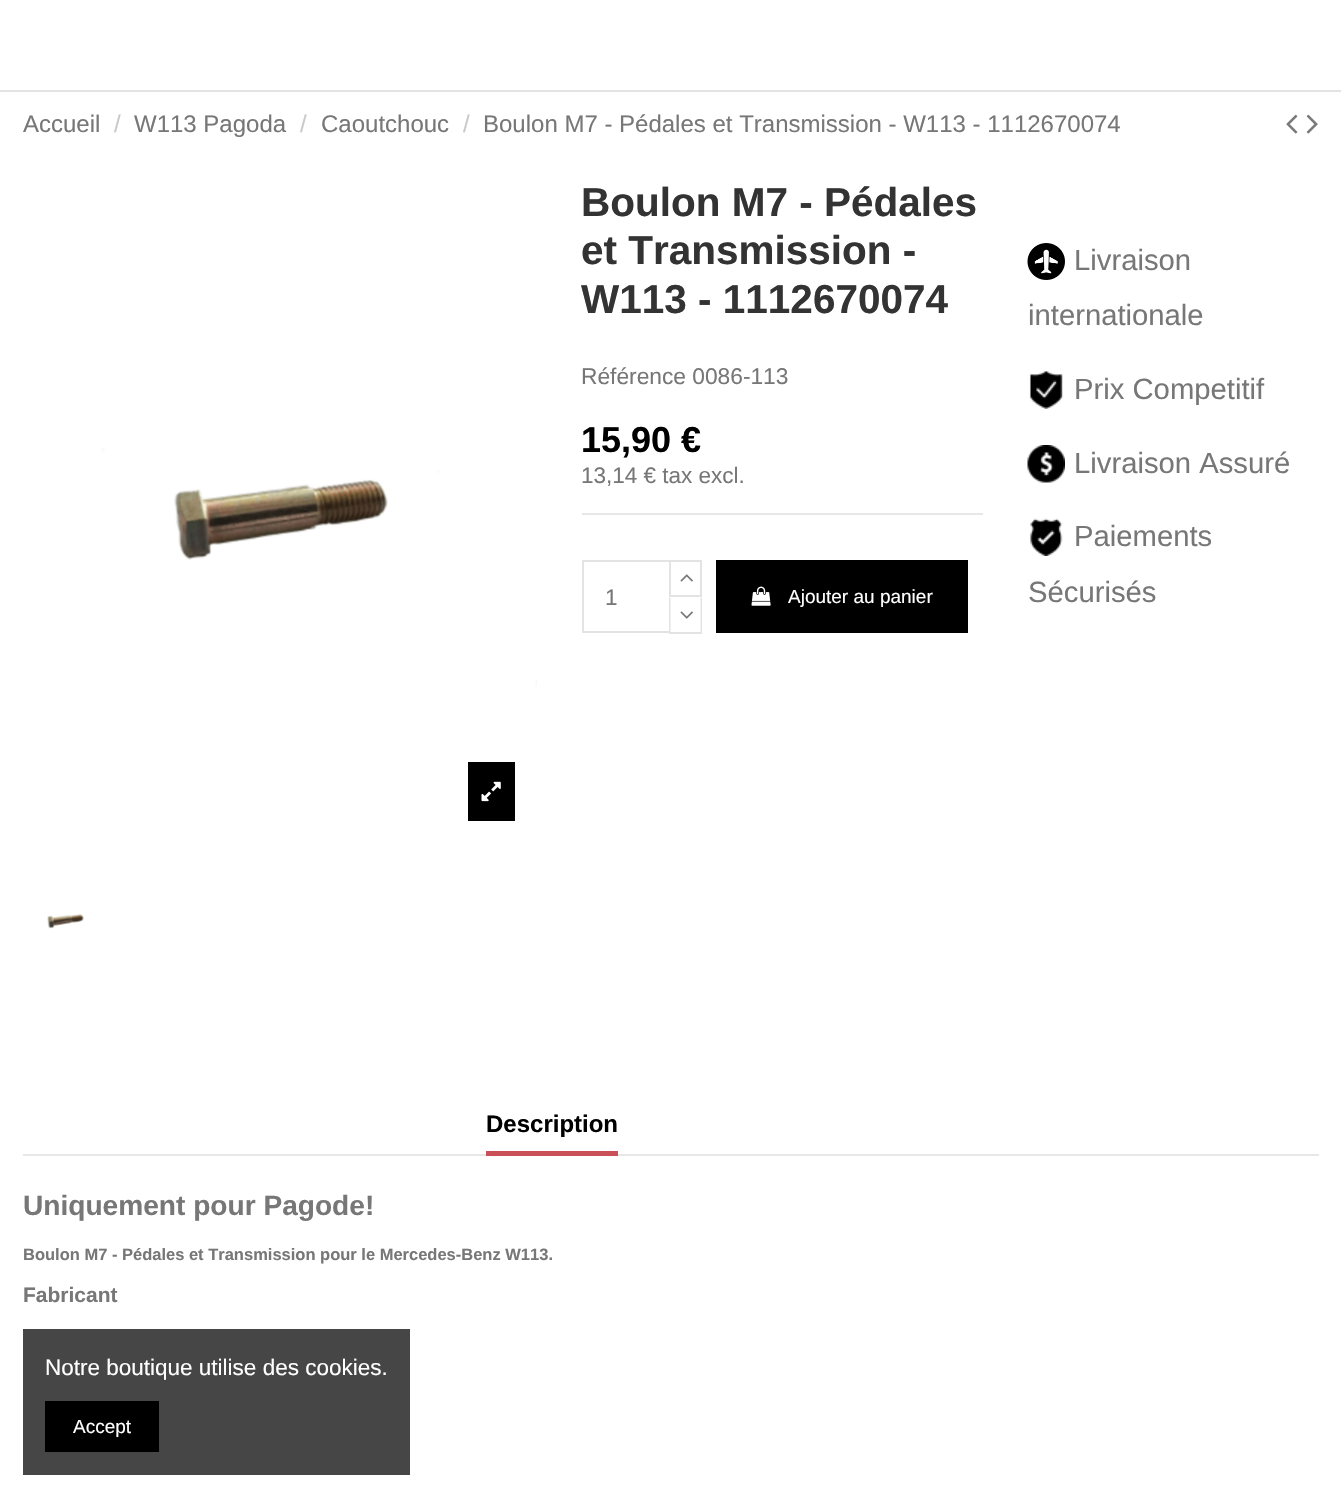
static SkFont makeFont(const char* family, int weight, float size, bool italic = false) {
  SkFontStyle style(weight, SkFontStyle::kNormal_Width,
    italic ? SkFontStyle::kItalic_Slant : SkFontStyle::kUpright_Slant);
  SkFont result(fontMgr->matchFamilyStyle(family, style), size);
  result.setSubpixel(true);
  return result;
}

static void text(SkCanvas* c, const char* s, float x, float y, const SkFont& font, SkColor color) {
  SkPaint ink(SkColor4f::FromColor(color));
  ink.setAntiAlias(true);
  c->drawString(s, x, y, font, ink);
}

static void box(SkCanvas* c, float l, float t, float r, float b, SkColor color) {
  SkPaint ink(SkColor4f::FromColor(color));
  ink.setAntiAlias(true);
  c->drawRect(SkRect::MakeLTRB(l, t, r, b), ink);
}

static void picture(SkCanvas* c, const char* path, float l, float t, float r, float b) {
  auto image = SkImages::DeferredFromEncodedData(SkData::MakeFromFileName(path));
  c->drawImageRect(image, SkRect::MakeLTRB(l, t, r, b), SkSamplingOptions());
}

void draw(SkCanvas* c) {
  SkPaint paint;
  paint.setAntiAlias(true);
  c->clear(0xffffffff);
  box(c, 0, 90, 1341, 92, 0xffe3e3e3);
  SkFont face1 = makeFont("Liberation Sans", 400, 24);
  text(c, "Accueil", 23, 132, face1, 0xff777777);
  text(c, "/", 114, 132, face1, 0xffcacaca);
  text(c, "W113 Pagoda", 134, 132, face1, 0xff777777);
  text(c, "/", 300, 132, face1, 0xffcacaca);
  text(c, "Caoutchouc", 321, 132, face1, 0xff777777);
  text(c, "/", 463, 132, face1, 0xffcacaca);
  text(c, "Boulon M7 - Pédales et Transmission - W113 - 1112670074", 483, 132, face1, 0xff777777);
  picture(c, "img_01.png", 1286, 114, 1298, 134);
  picture(c, "img_02.png", 1306, 114, 1318, 134);
  picture(c, "img_03.png", 102, 448, 537, 686);
  box(c, 468, 762, 515, 821, 0xff000000);
  picture(c, "img_04.png", 481, 781, 501, 802);
  picture(c, "img_05.png", 47, 914, 84, 929);
  box(c, 582, 513, 983, 515, 0xffe7e7e7);
  SkFont face2 = makeFont("Liberation Sans", 700, 40.5f);
  text(c, "Boulon M7 - Pédales", 581, 216, face2, 0xff333333);
  text(c, "et Transmission -", 581, 264, face2, 0xff333333);
  text(c, "W113 - 1112670074", 581, 313, face2, 0xff333333);
  SkFont face3 = makeFont("Liberation Sans", 400, 22.75f);
  text(c, "Référence 0086-113", 581, 384, face3, 0xff777777);
  SkFont face4 = makeFont("Liberation Sans", 700, 36);
  text(c, "15,90 €", 581, 452, face4, 0xff000000);
  SkFont face5 = makeFont("Liberation Sans", 400, 22.5f);
  text(c, "13,14 € tax excl.", 581, 483, face5, 0xff777777);
  paint.setStyle(SkPaint::kStroke_Style);
  paint.setStrokeWidth(2);
  paint.setColor(0xffe3e3e3);
  c->drawRect(SkRect::MakeLTRB(583, 561, 670, 632), paint);
  text(c, "1", 605, 605, face5, 0xff777777);
  c->drawRect(SkRect::MakeLTRB(670, 561, 701, 596), paint);
  picture(c, "img_06.png", 680, 574, 693, 582);
  box(c, 669, 597, 671, 632, 0xffffffff);
  paint.setStyle(SkPaint::kFill_Style);
  c->drawPath(SkPathBuilder().moveTo(702, 597).lineTo(702, 633).lineTo(700.5f, 631.5f).lineTo(700.5f, 598.5f).close().detach(), paint);
  box(c, 669, 632, 702, 634, 0xffe3e3e3);
  c->drawPath(SkPathBuilder().moveTo(669, 633).lineTo(669, 597).lineTo(670.5f, 598.5f).lineTo(670.5f, 631.5f).close().detach(), paint);
  picture(c, "img_07.png", 680, 611, 693, 619);
  box(c, 716, 560, 968, 633, 0xff000000);
  picture(c, "img_08.png", 751, 586, 771, 606);
  SkFont face6 = makeFont("Liberation Sans", 400, 19);
  text(c, "Ajouter au panier", 788, 603, face6, 0xffffffff);
  picture(c, "img_09.png", 1027, 243, 1065, 280);
  SkFont face7 = makeFont("Liberation Sans", 400, 29.25f);
  text(c, "Livraison", 1074, 270, face7, 0xff777777);
  text(c, "internationale", 1028, 325, face7, 0xff777777);
  picture(c, "img_10.png", 1029, 371, 1063, 409);
  text(c, "Prix Competitif", 1074, 399, face7, 0xff777777);
  picture(c, "img_11.png", 1027, 445, 1065, 483);
  text(c, "Livraison Assuré", 1074, 473, face7, 0xff777777);
  picture(c, "img_12.png", 1030, 518, 1063, 556);
  text(c, "Paiements", 1074, 546, face7, 0xff777777);
  text(c, "Sécurisés", 1028, 602, face7, 0xff777777);
  box(c, 23, 1154, 1319, 1156, 0xffe7e7e7);
  box(c, 486, 1151, 618, 1156, 0xffca5058);
  SkFont face8 = makeFont("Liberation Sans", 700, 24);
  text(c, "Description", 486, 1132, face8, 0xff000000);
  SkFont face9 = makeFont("Liberation Sans", 700, 28.1f);
  text(c, "Uniquement pour Pagode!", 23, 1215, face9, 0xff777777);
  SkFont face10 = makeFont("Liberation Sans", 700, 16.5f);
  text(c, "Boulon M7 - Pédales et Transmission pour le Mercedes-Benz W113.", 23, 1260, face10, 0xff777777);
  SkFont face11 = makeFont("Liberation Sans", 700, 21);
  text(c, "Fabricant", 23, 1302, face11, 0xff777777);
  box(c, 23, 1329, 410, 1475, 0xff464646);
  text(c, "Notre boutique utilise des cookies.", 45, 1375, face5, 0xffffffff);
  box(c, 45, 1401, 159, 1452, 0xff000000);
  text(c, "Accept", 73, 1433, face6, 0xffffffff);
}
